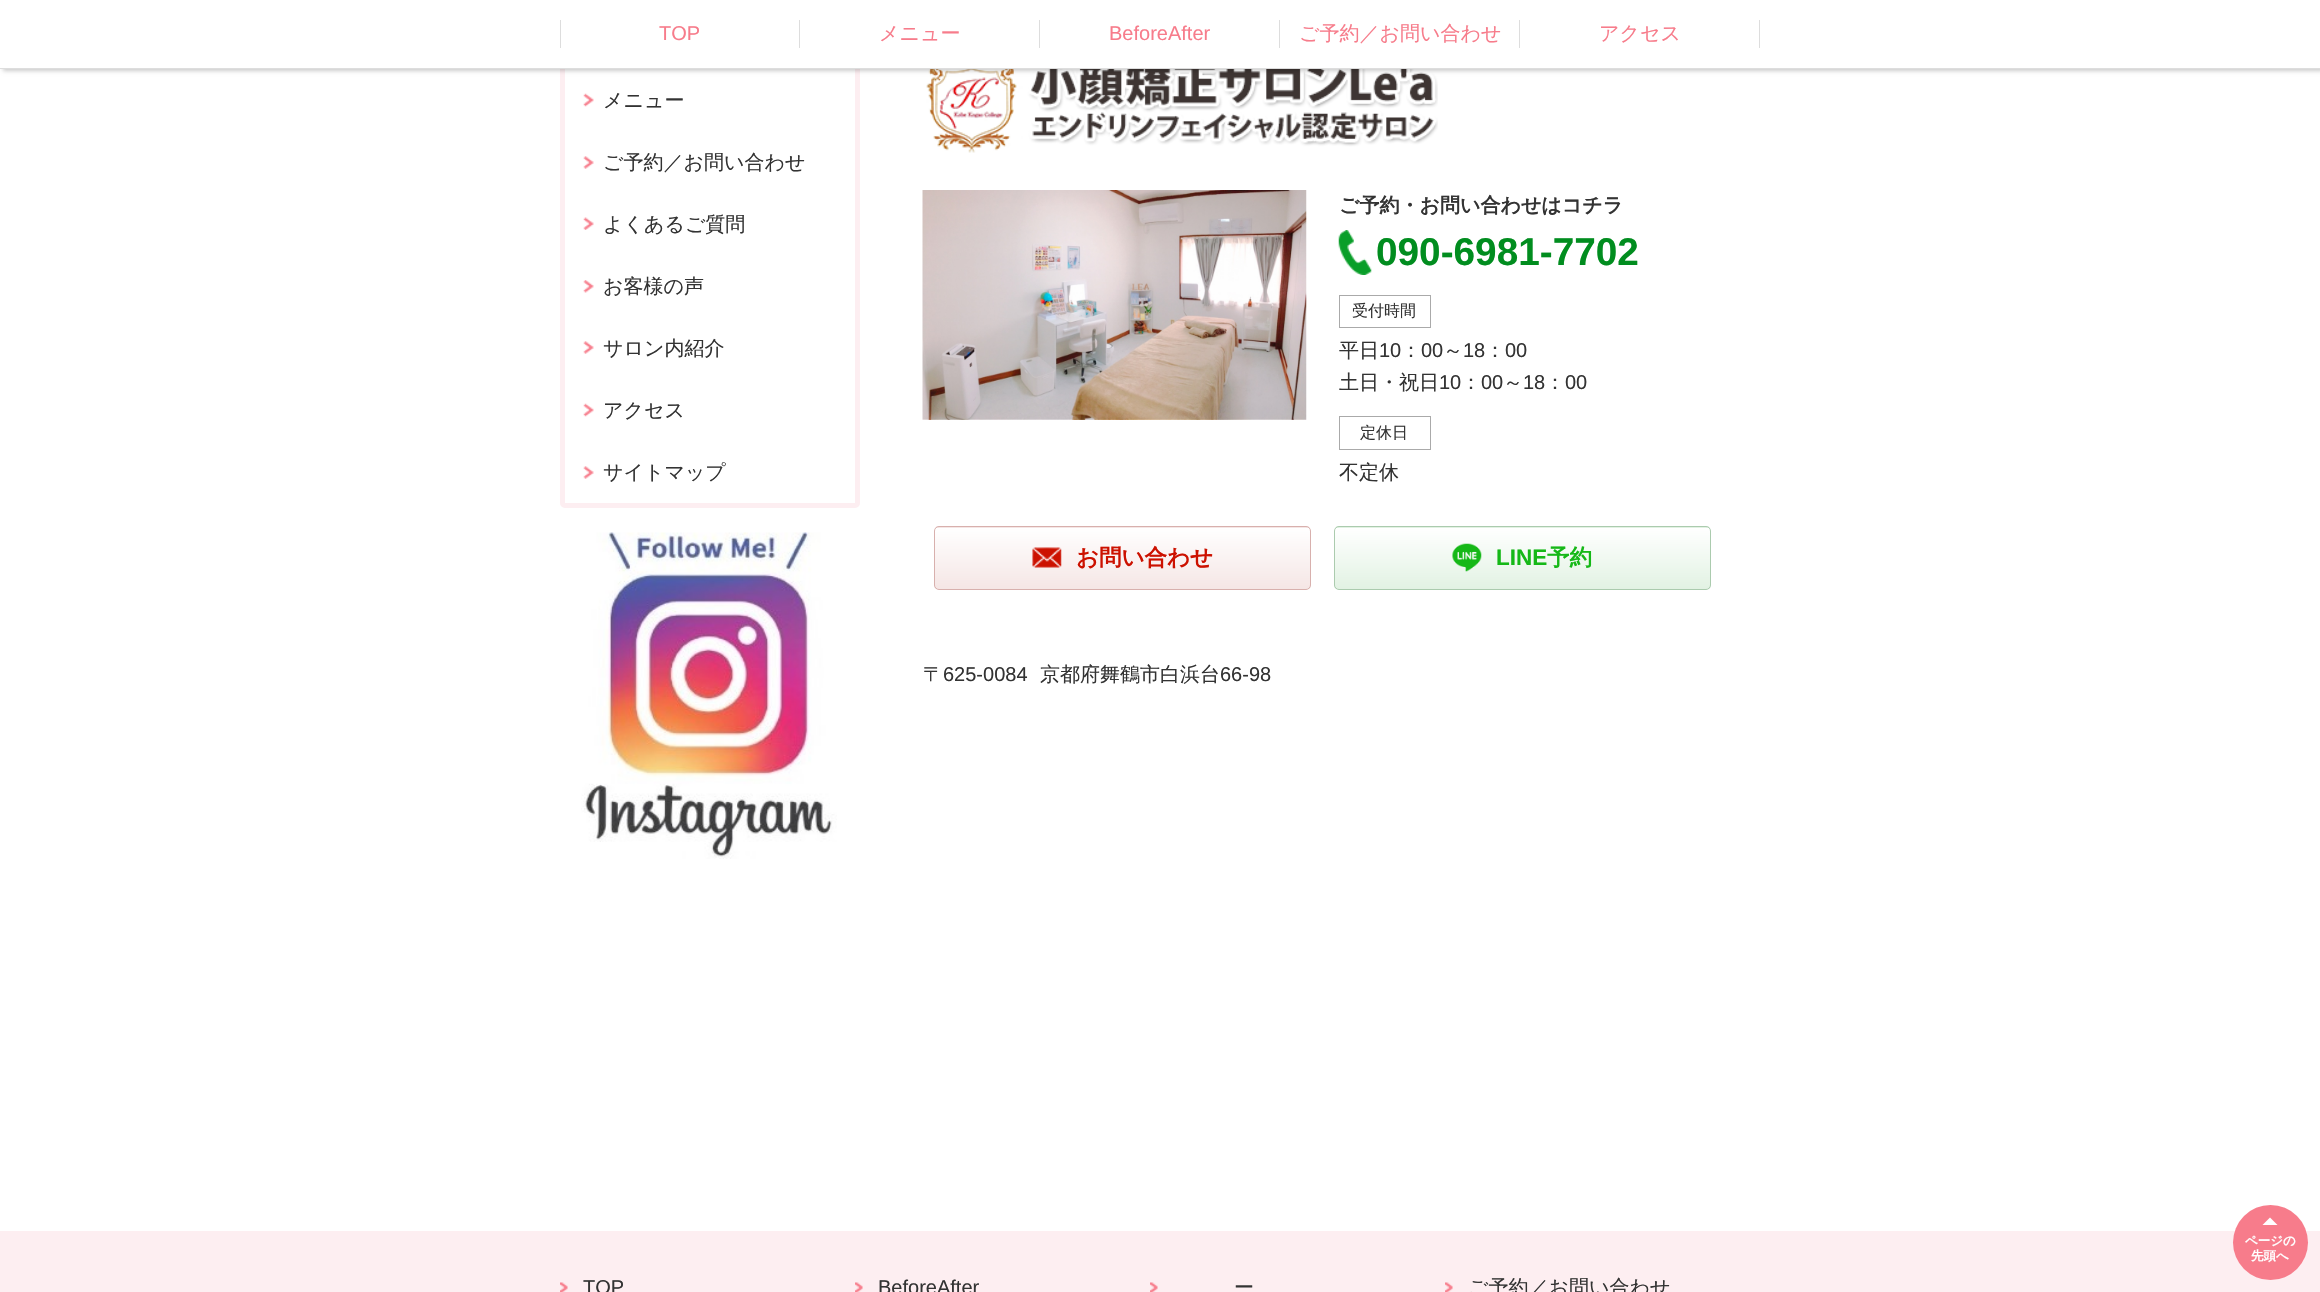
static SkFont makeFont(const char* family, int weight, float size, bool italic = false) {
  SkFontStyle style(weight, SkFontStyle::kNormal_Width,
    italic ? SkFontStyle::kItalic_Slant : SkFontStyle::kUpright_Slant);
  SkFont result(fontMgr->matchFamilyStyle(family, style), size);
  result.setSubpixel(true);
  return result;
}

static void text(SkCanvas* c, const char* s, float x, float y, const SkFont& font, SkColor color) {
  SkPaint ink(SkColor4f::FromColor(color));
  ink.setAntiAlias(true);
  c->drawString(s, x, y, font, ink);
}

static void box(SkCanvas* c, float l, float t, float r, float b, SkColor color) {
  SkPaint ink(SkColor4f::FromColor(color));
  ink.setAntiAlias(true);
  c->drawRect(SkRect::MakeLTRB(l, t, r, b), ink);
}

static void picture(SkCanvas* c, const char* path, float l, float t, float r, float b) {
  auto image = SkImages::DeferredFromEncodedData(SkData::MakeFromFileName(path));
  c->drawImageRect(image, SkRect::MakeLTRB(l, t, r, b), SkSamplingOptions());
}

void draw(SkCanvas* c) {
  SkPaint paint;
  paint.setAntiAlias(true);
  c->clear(0xffffffff);
  paint.setStyle(SkPaint::kStroke_Style);
  paint.setStrokeWidth(5);
  paint.setColor(0xfffdeef1);
  c->drawRoundRect(SkRect::MakeLTRB(562.5f, -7.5f, 857.5f, 505.5f), 2.5f, 2.5f, paint);
  picture(c, "img_06.png", 926, 69, 1438, 153);
  paint.setStyle(SkPaint::kFill_Style);
  paint.setColor(0x33000000);
  paint.setMaskFilter(SkMaskFilter::MakeBlur(kNormal_SkBlurStyle, 2));
  c->drawRect(SkRect::MakeLTRB(3, 3, 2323, 71), paint);
  paint.setMaskFilter(nullptr);
  box(c, 0, 0, 2320, 68, 0xffffffff);
  box(c, 0, 68, 2320, 69, 0xffdddddd);
  box(c, 560, 20, 561, 48, 0xffdddddd);
  SkFont face1 = makeFont("Liberation Sans", 400, 20);
  text(c, "TOP", 659, 40, face1, 0xfff77c8b);
  box(c, 799, 20, 800, 48, 0xffdddddd);
  SkFont face2 = makeFont("WenQuanYi Zen Hei", 500, 20);
  text(c, "メニュー", 879, 40, face2, 0xfff77c8b);
  box(c, 1039, 20, 1040, 48, 0xffdddddd);
  text(c, "BeforeAfter", 1109, 40, face1, 0xfff77c8b);
  box(c, 1279, 20, 1280, 48, 0xffdddddd);
  text(c, "ご予約／お問い合わせ", 1299, 40, face2, 0xfff77c8b);
  box(c, 1519, 20, 1520, 48, 0xffdddddd);
  text(c, "アクセス", 1599, 40, face2, 0xfff77c8b);
  box(c, 1759, 20, 1760, 48, 0xffdddddd);
  picture(c, "img_01.png", 583, 93, 594, 107);
  text(c, "メニュー", 603, 107, face2, 0xff333333);
  picture(c, "img_02.png", 583, 156, 594, 169);
  text(c, "ご予約／お問い合わせ", 603, 169, face2, 0xff333333);
  picture(c, "img_03.png", 583, 217, 594, 230);
  text(c, "よくあるご質問", 603, 231, face2, 0xff333333);
  picture(c, "img_04.png", 583, 280, 594, 293);
  text(c, "お客様の声", 603, 293, face2, 0xff333333);
  picture(c, "img_02.png", 583, 341, 594, 354);
  text(c, "サロン内紹介", 603, 355, face2, 0xff333333);
  picture(c, "img_01.png", 583, 403, 594, 417);
  text(c, "アクセス", 603, 417, face2, 0xff333333);
  picture(c, "img_02.png", 583, 466, 594, 479);
  text(c, "サイトマップ", 603, 479, face2, 0xff333333);
  picture(c, "img_05.png", 581, 532, 837, 859);
  picture(c, "img_07.png", 922, 190, 1307, 420);
  SkFont face3 = makeFont("WenQuanYi Zen Hei", 700, 20);
  text(c, "ご予約・お問い合わせはコチラ", 1339, 212, face3, 0xff333333);
  picture(c, "img_08.png", 1338, 230, 1372, 275);
  SkFont face4 = makeFont("Liberation Sans", 700, 38.75f);
  text(c, "090-6981-7702", 1376, 265, face4, 0xff018d1f);
  paint.setStyle(SkPaint::kStroke_Style);
  paint.setStrokeWidth(1);
  paint.setColor(0xffaaaaaa);
  c->drawRect(SkRect::MakeLTRB(1339.5f, 295.5f, 1430.5f, 327.5f), paint);
  SkFont face5 = makeFont("WenQuanYi Zen Hei", 500, 16);
  text(c, "受付時間", 1352, 316, face5, 0xff333333);
  text(c, "平日", 1339, 357, face2, 0xff333333);
  text(c, "10", 1379, 357, face1, 0xff333333);
  text(c, "：", 1401, 357, face2, 0xff333333);
  text(c, "00", 1421, 357, face1, 0xff333333);
  text(c, "～", 1443, 357, face2, 0xff333333);
  text(c, "18", 1463, 357, face1, 0xff333333);
  text(c, "：", 1485, 357, face2, 0xff333333);
  text(c, "00", 1505, 357, face1, 0xff333333);
  text(c, "土日・祝日", 1339, 389, face2, 0xff333333);
  text(c, "10", 1439, 389, face1, 0xff333333);
  text(c, "：", 1461, 389, face2, 0xff333333);
  text(c, "00", 1481, 389, face1, 0xff333333);
  text(c, "～", 1503, 389, face2, 0xff333333);
  text(c, "18", 1523, 389, face1, 0xff333333);
  text(c, "：", 1545, 389, face2, 0xff333333);
  text(c, "00", 1565, 389, face1, 0xff333333);
  c->drawRect(SkRect::MakeLTRB(1339.5f, 416.5f, 1430.5f, 449.5f), paint);
  text(c, "定休日", 1360, 438, face5, 0xff333333);
  text(c, "不定休", 1339, 479, face2, 0xff333333);
  c->save();
  c->clipPath(SkPathBuilder().moveTo(939, 526).lineTo(1306, 526).cubicTo(1309, 526, 1311, 528, 1311, 531).lineTo(1311, 585).cubicTo(1311, 588, 1309, 590, 1306, 590).lineTo(939, 590).cubicTo(936, 590, 934, 588, 934, 585).lineTo(934, 531).cubicTo(934, 528, 936, 526, 939, 526).close().detach(), true);
  paint.setStyle(SkPaint::kFill_Style);
  {
    const SkColor colors[] = {0xffffffff, 0xfff5e6e5};
    const float stops[] = {0, 1};
    const SkPoint ends[] = {{1123, 466}, {1123, 528}};
    paint.setShader(SkGradientShader::MakeLinear(ends, colors, stops, 2, SkTileMode::kClamp));
    paint.setAlpha(255);
  }
  c->drawRect(SkRect::MakeLTRB(934, 526, 1311, 528), paint);
  {
    const SkColor colors[] = {0xffffffff, 0xfff5e6e5};
    const float stops[] = {0, 1};
    const SkPoint ends[] = {{1123, 528}, {1123, 589}};
    paint.setShader(SkGradientShader::MakeLinear(ends, colors, stops, 2, SkTileMode::kClamp));
    paint.setAlpha(255);
  }
  c->drawRect(SkRect::MakeLTRB(934, 528, 1311, 589), paint);
  c->restore();
  paint.setStyle(SkPaint::kStroke_Style);
  paint.setShader(nullptr);
  paint.setColor(0xffd8b0ad);
  c->drawRoundRect(SkRect::MakeLTRB(934.5f, 526.5f, 1310.5f, 589.5f), 4.5f, 4.5f, paint);
  picture(c, "img_09.png", 1032, 547, 1062, 568);
  SkFont face6 = makeFont("WenQuanYi Zen Hei", 700, 22.5f);
  text(c, "お問い合わせ", 1076, 565, face6, 0xffcc1100);
  c->save();
  c->clipPath(SkPathBuilder().moveTo(1339, 526).lineTo(1706, 526).cubicTo(1709, 526, 1711, 528, 1711, 531).lineTo(1711, 585).cubicTo(1711, 588, 1709, 590, 1706, 590).lineTo(1339, 590).cubicTo(1336, 590, 1334, 588, 1334, 585).lineTo(1334, 531).cubicTo(1334, 528, 1336, 526, 1339, 526).close().detach(), true);
  paint.setStyle(SkPaint::kFill_Style);
  {
    const SkColor colors[] = {0xffffffff, 0xffe2f2e3};
    const float stops[] = {0, 1};
    const SkPoint ends[] = {{1523, 466}, {1523, 528}};
    paint.setShader(SkGradientShader::MakeLinear(ends, colors, stops, 2, SkTileMode::kClamp));
    paint.setAlpha(255);
  }
  c->drawRect(SkRect::MakeLTRB(1334, 526, 1711, 528), paint);
  {
    const SkColor colors[] = {0xffffffff, 0xffe2f2e3};
    const float stops[] = {0, 1};
    const SkPoint ends[] = {{1523, 528}, {1523, 589}};
    paint.setShader(SkGradientShader::MakeLinear(ends, colors, stops, 2, SkTileMode::kClamp));
    paint.setAlpha(255);
  }
  c->drawRect(SkRect::MakeLTRB(1334, 528, 1711, 589), paint);
  c->restore();
  paint.setStyle(SkPaint::kStroke_Style);
  paint.setShader(nullptr);
  paint.setColor(0xffabcbae);
  c->drawRoundRect(SkRect::MakeLTRB(1334.5f, 526.5f, 1710.5f, 589.5f), 4.5f, 4.5f, paint);
  picture(c, "img_10.png", 1452, 543, 1482, 572);
  SkFont face7 = makeFont("Liberation Sans", 700, 22.5f);
  text(c, "LINE", 1496, 565, face7, 0xff15b817);
  text(c, "予約", 1547, 565, face6, 0xff15b817);
  text(c, "〒", 923, 681, face2, 0xff333333);
  text(c, "625-0084", 943, 681, face1, 0xff333333);
  text(c, "京都府舞鶴市白浜台", 1040, 681, face2, 0xff333333);
  text(c, "66-98", 1220, 681, face1, 0xff333333);
  box(c, 0, 1231, 2320, 1292, 0xfffdeef1);
  paint.setStyle(SkPaint::kFill_Style);
  paint.setColor(0xfff77c8b);
  c->drawCircle(2270.5f, 1242.5f, 37.5f, paint);
  paint.setColor(0xffffffff);
  c->drawPath(SkPathBuilder().moveTo(2277.5f, 1225).lineTo(2262.5f, 1225).lineTo(2270, 1217.5f).close().detach(), paint);
  SkFont face8 = makeFont("WenQuanYi Zen Hei", 700, 12.5f);
  text(c, "ページの", 2245, 1245, face8, 0xffffffff);
  text(c, "先頭へ", 2251, 1260, face8, 0xffffffff);
  picture(c, "img_11.png", 560, 1282, 568, 1292);
  text(c, "TOP", 583, 1294, face1, 0xff333333);
  picture(c, "img_12.png", 855, 1282, 863, 1292);
  text(c, "BeforeAfter", 878, 1294, face1, 0xff333333);
  picture(c, "img_11.png", 1150, 1282, 1158, 1292);
  text(c, "ー", 1234, 1294, face2, 0xff333333);
  picture(c, "img_12.png", 1445, 1282, 1453, 1292);
  text(c, "ご予約／お問い合わせ", 1468, 1294, face2, 0xff333333);
}
